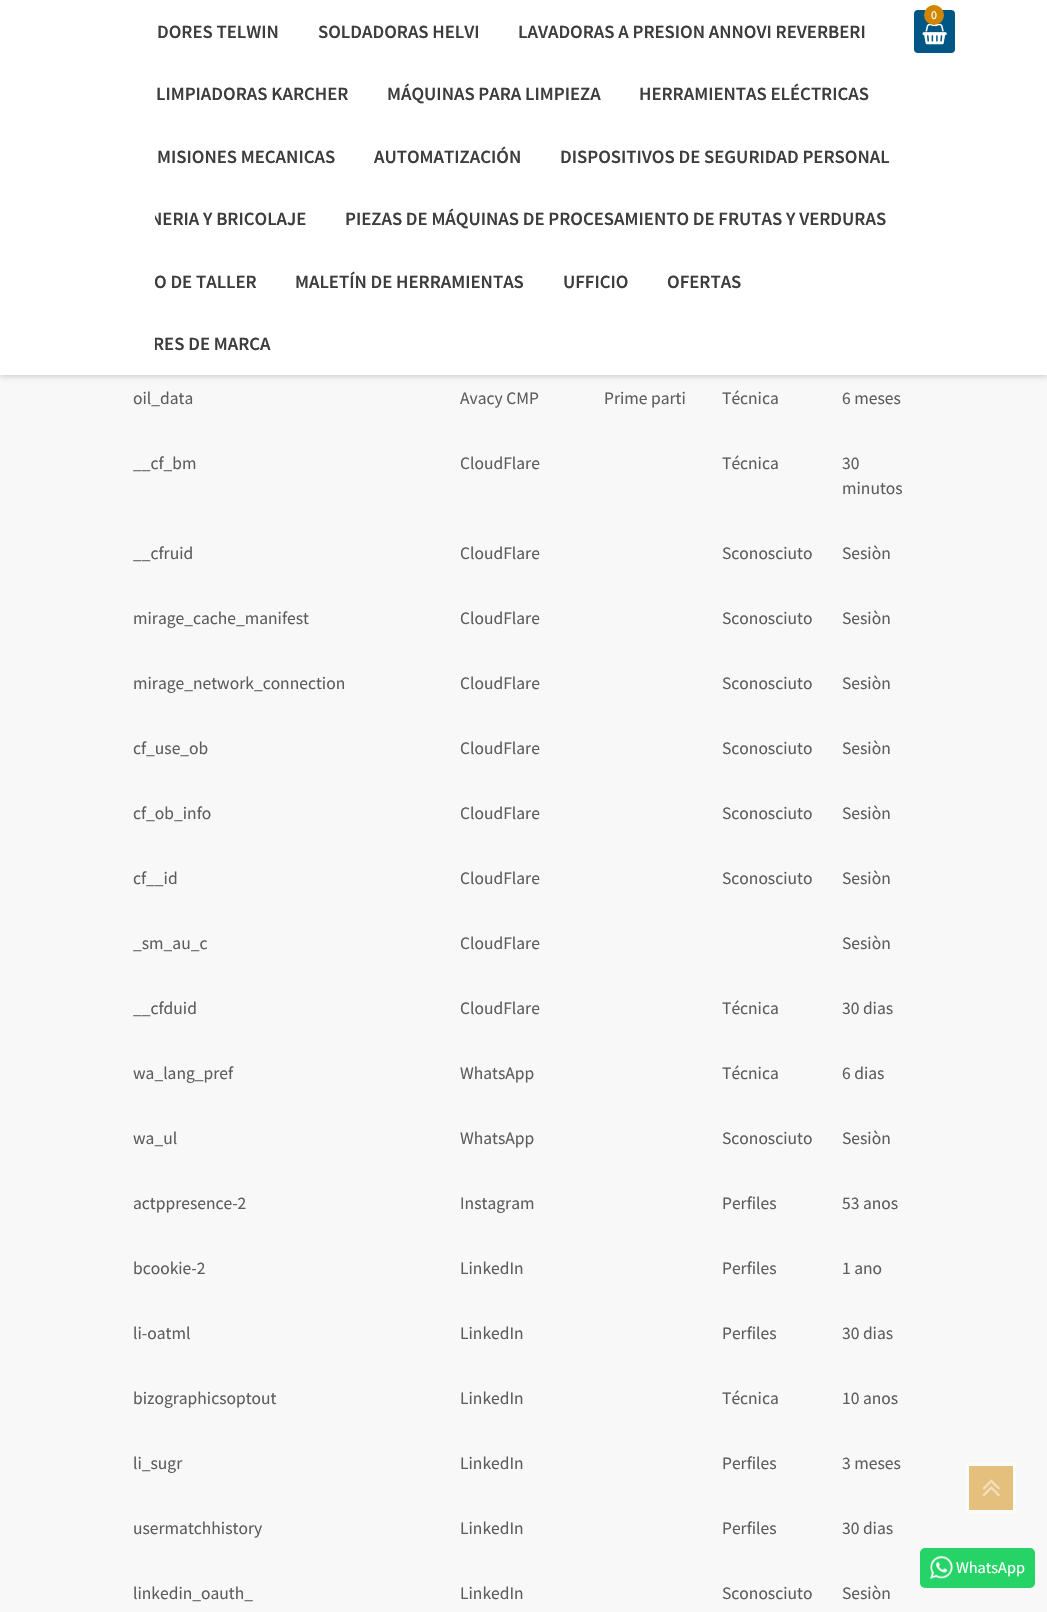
static SkFont makeFont(const char* family, int weight, float size, bool italic = false) {
  SkFontStyle style(weight, SkFontStyle::kNormal_Width,
    italic ? SkFontStyle::kItalic_Slant : SkFontStyle::kUpright_Slant);
  SkFont result(fontMgr->matchFamilyStyle(family, style), size);
  result.setSubpixel(true);
  return result;
}

static void text(SkCanvas* c, const char* s, float x, float y, const SkFont& font, SkColor color) {
  SkPaint ink(SkColor4f::FromColor(color));
  ink.setAntiAlias(true);
  c->drawString(s, x, y, font, ink);
}

static void box(SkCanvas* c, float l, float t, float r, float b, SkColor color) {
  SkPaint ink(SkColor4f::FromColor(color));
  ink.setAntiAlias(true);
  c->drawRect(SkRect::MakeLTRB(l, t, r, b), ink);
}

static void roundBox(SkCanvas* c, float l, float t, float r, float b, float radius, SkColor color) {
  SkPaint ink(SkColor4f::FromColor(color));
  ink.setAntiAlias(true);
  c->drawRoundRect(SkRect::MakeLTRB(l, t, r, b), radius, radius, ink);
}

static void picture(SkCanvas* c, const char* path, float l, float t, float r, float b) {
  auto image = SkImages::DeferredFromEncodedData(SkData::MakeFromFileName(path));
  c->drawImageRect(image, SkRect::MakeLTRB(l, t, r, b), SkSamplingOptions());
}

void draw(SkCanvas* c) {
  SkPaint paint;
  paint.setAntiAlias(true);
  c->clear(0xfff8f8f8);
  paint.setColor(0x33000000);
  paint.setMaskFilter(SkMaskFilter::MakeBlur(kNormal_SkBlurStyle, 3));
  c->drawRect(SkRect::MakeLTRB(0, 1, 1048, 376), paint);
  paint.setMaskFilter(nullptr);
  box(c, 0, 0, 1047, 375, 0xffffffff);
  roundBox(c, 914, 10, 955, 53, 4, 0xff005685);
  picture(c, "img_01.png", 922, 23, 947, 45);
  paint.setColor(0xffd18600);
  c->drawCircle(934, 15, 10, paint);
  SkFont face1 = makeFont("Source Sans Pro", 400, 12);
  text(c, "0", 931, 19, face1, 0xffffffff);
  SkFont face2 = makeFont("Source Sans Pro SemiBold", 600, 18.75f);
  text(c, "DORES TELWIN", 157, 38, face2, 0xff3d3d3d);
  text(c, "SOLDADORAS HELVI", 318, 38, face2, 0xff3d3d3d);
  text(c, "LAVADORAS A PRESION ANNOVI REVERBERI", 518, 38, face2, 0xff3d3d3d);
  text(c, "LIMPIADORAS KARCHER", 156, 100, face2, 0xff3d3d3d);
  text(c, "MÁQUINAS PARA LIMPIEZA", 387, 100, face2, 0xff3d3d3d);
  text(c, "HERRAMIENTAS ELÉCTRICAS", 639, 100, face2, 0xff3d3d3d);
  text(c, "MISIONES MECANICAS", 157, 163, face2, 0xff3d3d3d);
  text(c, "AUTOMATIZACIÓN", 374, 163, face2, 0xff3d3d3d);
  text(c, "DISPOSITIVOS DE SEGURIDAD PERSONAL", 560, 163, face2, 0xff3d3d3d);
  text(c, "NERIA Y BRICOLAJE", 150, 225, face2, 0xff3d3d3d);
  text(c, "PIEZAS DE MÁQUINAS DE PROCESAMIENTO DE FRUTAS Y VERDURAS", 345, 225, face2, 0xff3d3d3d);
  text(c, "O DE TALLER", 154, 288, face2, 0xff3d3d3d);
  text(c, "MALETÍN DE HERRAMIENTAS", 295, 288, face2, 0xff3d3d3d);
  text(c, "UFFICIO", 563, 288, face2, 0xff3d3d3d);
  text(c, "OFERTAS", 667, 288, face2, 0xff3d3d3d);
  text(c, "RES DE MARCA", 153, 350, face2, 0xff3d3d3d);
  box(c, 151, 212, 155, 350, 0xffffffff);
  SkFont face3 = makeFont("Source Sans Pro", 400, 17.5f);
  text(c, "oil_data", 133, 404, face3, 0xff5d5d5d);
  text(c, "Avacy CMP", 460, 404, face3, 0xff5d5d5d);
  text(c, "Prime parti", 604, 404, face3, 0xff5d5d5d);
  text(c, "Técnica", 722, 404, face3, 0xff5d5d5d);
  text(c, "6 meses", 842, 404, face3, 0xff5d5d5d);
  text(c, "__cf_bm", 133, 469, face3, 0xff5d5d5d);
  text(c, "CloudFlare", 460, 469, face3, 0xff5d5d5d);
  text(c, "Técnica", 722, 469, face3, 0xff5d5d5d);
  text(c, "30", 842, 469, face3, 0xff5d5d5d);
  text(c, "minutos", 842, 494, face3, 0xff5d5d5d);
  text(c, "__cfruid", 133, 559, face3, 0xff5d5d5d);
  text(c, "CloudFlare", 460, 559, face3, 0xff5d5d5d);
  text(c, "Sconosciuto", 722, 559, face3, 0xff5d5d5d);
  text(c, "Sesiòn", 842, 559, face3, 0xff5d5d5d);
  text(c, "mirage_cache_manifest", 133, 624, face3, 0xff5d5d5d);
  text(c, "CloudFlare", 460, 624, face3, 0xff5d5d5d);
  text(c, "Sconosciuto", 722, 624, face3, 0xff5d5d5d);
  text(c, "Sesiòn", 842, 624, face3, 0xff5d5d5d);
  text(c, "mirage_network_connection", 133, 689, face3, 0xff5d5d5d);
  text(c, "CloudFlare", 460, 689, face3, 0xff5d5d5d);
  text(c, "Sconosciuto", 722, 689, face3, 0xff5d5d5d);
  text(c, "Sesiòn", 842, 689, face3, 0xff5d5d5d);
  text(c, "cf_use_ob", 133, 754, face3, 0xff5d5d5d);
  text(c, "CloudFlare", 460, 754, face3, 0xff5d5d5d);
  text(c, "Sconosciuto", 722, 754, face3, 0xff5d5d5d);
  text(c, "Sesiòn", 842, 754, face3, 0xff5d5d5d);
  text(c, "cf_ob_info", 133, 819, face3, 0xff5d5d5d);
  text(c, "CloudFlare", 460, 819, face3, 0xff5d5d5d);
  text(c, "Sconosciuto", 722, 819, face3, 0xff5d5d5d);
  text(c, "Sesiòn", 842, 819, face3, 0xff5d5d5d);
  text(c, "cf__id", 133, 884, face3, 0xff5d5d5d);
  text(c, "CloudFlare", 460, 884, face3, 0xff5d5d5d);
  text(c, "Sconosciuto", 722, 884, face3, 0xff5d5d5d);
  text(c, "Sesiòn", 842, 884, face3, 0xff5d5d5d);
  text(c, "_sm_au_c", 133, 949, face3, 0xff5d5d5d);
  text(c, "CloudFlare", 460, 949, face3, 0xff5d5d5d);
  text(c, "Sesiòn", 842, 949, face3, 0xff5d5d5d);
  text(c, "__cfduid", 133, 1014, face3, 0xff5d5d5d);
  text(c, "CloudFlare", 460, 1014, face3, 0xff5d5d5d);
  text(c, "Técnica", 722, 1014, face3, 0xff5d5d5d);
  text(c, "30 dias", 842, 1014, face3, 0xff5d5d5d);
  text(c, "wa_lang_pref", 133, 1079, face3, 0xff5d5d5d);
  text(c, "WhatsApp", 460, 1079, face3, 0xff5d5d5d);
  text(c, "Técnica", 722, 1079, face3, 0xff5d5d5d);
  text(c, "6 dias", 842, 1079, face3, 0xff5d5d5d);
  text(c, "wa_ul", 133, 1144, face3, 0xff5d5d5d);
  text(c, "WhatsApp", 460, 1144, face3, 0xff5d5d5d);
  text(c, "Sconosciuto", 722, 1144, face3, 0xff5d5d5d);
  text(c, "Sesiòn", 842, 1144, face3, 0xff5d5d5d);
  text(c, "actppresence-2", 133, 1209, face3, 0xff5d5d5d);
  text(c, "Instagram", 460, 1209, face3, 0xff5d5d5d);
  text(c, "Perfiles", 722, 1209, face3, 0xff5d5d5d);
  text(c, "53 anos", 842, 1209, face3, 0xff5d5d5d);
  text(c, "bcookie-2", 133, 1274, face3, 0xff5d5d5d);
  text(c, "LinkedIn", 460, 1274, face3, 0xff5d5d5d);
  text(c, "Perfiles", 722, 1274, face3, 0xff5d5d5d);
  text(c, "1 ano", 842, 1274, face3, 0xff5d5d5d);
  text(c, "li-oatml", 133, 1339, face3, 0xff5d5d5d);
  text(c, "LinkedIn", 460, 1339, face3, 0xff5d5d5d);
  text(c, "Perfiles", 722, 1339, face3, 0xff5d5d5d);
  text(c, "30 dias", 842, 1339, face3, 0xff5d5d5d);
  text(c, "bizographicsoptout", 133, 1404, face3, 0xff5d5d5d);
  text(c, "LinkedIn", 460, 1404, face3, 0xff5d5d5d);
  text(c, "Técnica", 722, 1404, face3, 0xff5d5d5d);
  text(c, "10 anos", 842, 1404, face3, 0xff5d5d5d);
  text(c, "li_sugr", 133, 1469, face3, 0xff5d5d5d);
  text(c, "LinkedIn", 460, 1469, face3, 0xff5d5d5d);
  text(c, "Perfiles", 722, 1469, face3, 0xff5d5d5d);
  text(c, "3 meses", 842, 1469, face3, 0xff5d5d5d);
  text(c, "usermatchhistory", 133, 1534, face3, 0xff5d5d5d);
  text(c, "LinkedIn", 460, 1534, face3, 0xff5d5d5d);
  text(c, "Perfiles", 722, 1534, face3, 0xff5d5d5d);
  text(c, "30 dias", 842, 1534, face3, 0xff5d5d5d);
  text(c, "linkedin_oauth_", 133, 1599, face3, 0xff5d5d5d);
  text(c, "LinkedIn", 460, 1599, face3, 0xff5d5d5d);
  text(c, "Sconosciuto", 722, 1599, face3, 0xff5d5d5d);
  text(c, "Sesiòn", 842, 1599, face3, 0xff5d5d5d);
  paint.setColor(0xffe5bf7c);
  c->drawRect(SkRect::MakeLTRB(967.5f, 1464.5f, 1014.5f, 1511.5f), paint);
  paint.setStyle(SkPaint::kStroke_Style);
  paint.setStrokeWidth(3);
  paint.setColor(0xfffcfcfc);
  c->drawRect(SkRect::MakeLTRB(967.5f, 1464.5f, 1014.5f, 1511.5f), paint);
  picture(c, "img_02.png", 982, 1479, 1000, 1497);
  roundBox(c, 920, 1548, 1035, 1588, 5, 0xff25d366);
  picture(c, "img_03.png", 930, 1555, 953, 1579);
  SkFont face4 = makeFont("Source Sans Pro", 400, 16.25f);
  text(c, "WhatsApp", 956, 1573, face4, 0xffffffff);
}
